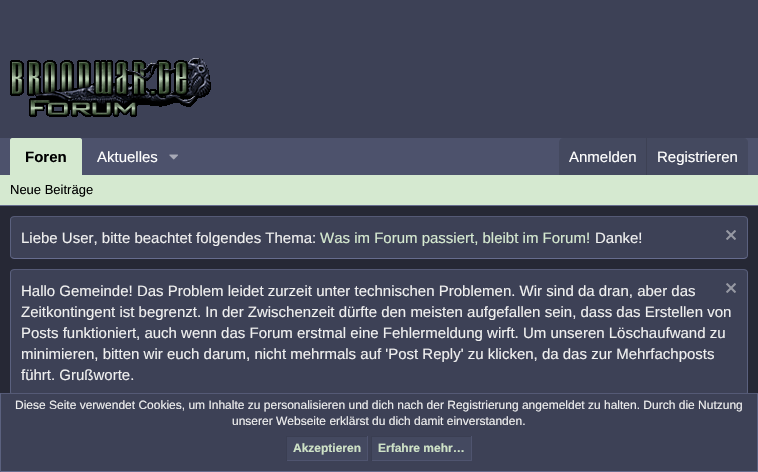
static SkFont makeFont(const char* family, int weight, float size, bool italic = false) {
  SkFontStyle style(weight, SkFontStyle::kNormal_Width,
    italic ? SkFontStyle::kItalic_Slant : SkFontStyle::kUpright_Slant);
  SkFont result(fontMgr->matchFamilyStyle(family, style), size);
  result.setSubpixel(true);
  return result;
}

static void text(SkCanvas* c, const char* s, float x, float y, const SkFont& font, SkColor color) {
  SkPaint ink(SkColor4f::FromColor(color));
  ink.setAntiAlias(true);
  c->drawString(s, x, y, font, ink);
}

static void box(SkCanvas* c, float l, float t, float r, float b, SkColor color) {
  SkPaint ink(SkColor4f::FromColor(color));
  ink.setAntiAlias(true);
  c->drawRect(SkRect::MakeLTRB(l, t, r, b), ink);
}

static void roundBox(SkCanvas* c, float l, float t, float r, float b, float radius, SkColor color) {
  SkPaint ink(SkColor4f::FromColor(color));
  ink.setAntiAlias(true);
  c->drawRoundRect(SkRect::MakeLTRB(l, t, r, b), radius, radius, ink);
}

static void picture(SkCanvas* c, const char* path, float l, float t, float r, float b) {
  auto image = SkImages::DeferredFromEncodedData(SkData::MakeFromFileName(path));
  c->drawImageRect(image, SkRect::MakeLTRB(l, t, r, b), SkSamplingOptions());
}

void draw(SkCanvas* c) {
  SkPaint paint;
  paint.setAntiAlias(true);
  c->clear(0xff262835);
  box(c, 0, 0, 758, 138, 0xff3d4156);
  picture(c, "img_01.png", 10, 58, 211, 117);
  box(c, 0, 138, 758, 175, 0xff4d526c);
  paint.setColor(0xffd5e9d0);
  c->drawPath(SkPathBuilder().moveTo(12, 138).lineTo(80, 138).cubicTo(81, 138, 82, 139, 82, 140).lineTo(82, 175).lineTo(10, 175).lineTo(10, 140).cubicTo(10, 139, 11, 138, 12, 138).close().detach(), paint);
  SkFont face1 = makeFont("Liberation Sans", 700, 15);
  text(c, "Foren", 25, 162, face1, 0xff000000);
  SkFont face2 = makeFont("Liberation Sans", 400, 15);
  text(c, "Aktuelles", 97, 162, face2, 0xffffffff);
  picture(c, "img_02.png", 169, 154, 178, 160);
  paint.setColor(0xff44495f);
  c->drawPath(SkPathBuilder().moveTo(563, 138).lineTo(744, 138).cubicTo(746, 138, 748, 140, 748, 142).lineTo(748, 175).lineTo(559, 175).lineTo(559, 142).cubicTo(559, 140, 561, 138, 563, 138).close().detach(), paint);
  text(c, "Anmelden", 569, 162, face2, 0xffffffff);
  box(c, 646, 138, 647, 175, 0xff3d4154);
  text(c, "Registrieren", 657, 162, face2, 0xffffffff);
  box(c, 0, 175, 758, 205, 0xffd5e9d0);
  box(c, 0, 205, 758, 206, 0xff666c8e);
  SkFont face3 = makeFont("Liberation Sans", 400, 13);
  text(c, "Neue Beiträge", 10, 194, face3, 0xff000000);
  roundBox(c, 10, 216, 748, 259, 4, 0xff3d4156);
  paint.setStyle(SkPaint::kStroke_Style);
  paint.setStrokeWidth(1);
  paint.setColor(0xff555a76);
  c->drawPath(SkPathBuilder().moveTo(11.5f, 217.5f).lineTo(14, 216.5f).lineTo(744, 216.5f).lineTo(746.5f, 217.5f).detach(), paint);
  paint.setColor(0xff5b617f);
  c->drawPath(SkPathBuilder().moveTo(746.5f, 217.5f).cubicTo(747, 218, 747.5f, 219, 747.5f, 220).lineTo(747.5f, 255).cubicTo(747.5f, 256, 747, 257, 746.5f, 257.5f).detach(), paint);
  paint.setColor(0xff666c8e);
  c->drawPath(SkPathBuilder().moveTo(746.5f, 257.5f).lineTo(744, 258.5f).lineTo(14, 258.5f).lineTo(11.5f, 257.5f).detach(), paint);
  paint.setColor(0xff5b617f);
  c->drawPath(SkPathBuilder().moveTo(11.5f, 257.5f).cubicTo(11, 257, 10.5f, 256, 10.5f, 255).lineTo(10.5f, 220).cubicTo(10.5f, 219, 11, 218, 11.5f, 217.5f).detach(), paint);
  text(c, "Liebe User, bitte beachtet folgendes Thema:", 21, 243, face2, 0xffefefef);
  text(c, "Was im Forum passiert, bleibt im Forum!", 320, 243, face2, 0xffd5e9d0);
  text(c, "Danke!", 595, 243, face2, 0xffefefef);
  picture(c, "img_03.png", 726, 230, 736, 240);
  roundBox(c, 10, 269, 748, 396, 4, 0xff3d4156);
  paint.setColor(0xff555a76);
  c->drawPath(SkPathBuilder().moveTo(11.5f, 270.5f).lineTo(14, 269.5f).lineTo(744, 269.5f).lineTo(746.5f, 270.5f).detach(), paint);
  paint.setColor(0xff5b617f);
  c->drawPath(SkPathBuilder().moveTo(746.5f, 270.5f).cubicTo(747, 271, 747.5f, 272, 747.5f, 273).lineTo(747.5f, 392).cubicTo(747.5f, 393, 747, 394, 746.5f, 394.5f).detach(), paint);
  c->drawPath(SkPathBuilder().moveTo(11.5f, 394.5f).cubicTo(11, 394, 10.5f, 393, 10.5f, 392).lineTo(10.5f, 273).cubicTo(10.5f, 272, 11, 271, 11.5f, 270.5f).detach(), paint);
  text(c, "Hallo Gemeinde! Das Problem leidet zurzeit unter technischen Problemen. Wir sind da dran, aber das", 21, 296, face2, 0xffefefef);
  picture(c, "img_03.png", 726, 283, 736, 293);
  text(c, "Zeitkontingent ist begrenzt. In der Zwischenzeit dürfte den meisten aufgefallen sein, dass das Erstellen von", 21, 317, face2, 0xffefefef);
  text(c, "Posts funktioniert, auch wenn das Forum erstmal eine Fehlermeldung wirft. Um unseren Löschaufwand zu", 21, 338, face2, 0xffefefef);
  text(c, "minimieren, bitten wir euch darum, nicht mehrmals auf 'Post Reply' zu klicken, da das zur Mehrfachposts", 21, 359, face2, 0xffefefef);
  text(c, "führt. Grußworte.", 21, 380, face2, 0xffefefef);
  box(c, 1, 394, 757, 471, 0xff3d4156);
  box(c, 0, 393, 758, 394, 0xff555a76);
  box(c, 757, 393, 758, 472, 0xff5b617f);
  box(c, 0, 471, 758, 472, 0xff666c8e);
  box(c, 0, 393, 1, 472, 0xff5b617f);
  SkFont face4 = makeFont("Liberation Sans", 400, 12);
  text(c, "Diese Seite verwendet Cookies, um Inhalte zu personalisieren und dich nach der Registrierung angemeldet zu halten. Durch die Nutzung", 15, 409, face4, 0xffefefef);
  text(c, "unserer Webseite erklärst du dich damit einverstanden.", 232, 425, face4, 0xffefefef);
  box(c, 287, 437, 367, 460, 0xff444960);
  box(c, 286, 436, 368, 437, 0xff3a3e52);
  box(c, 367, 436, 368, 461, 0xff4f546f);
  box(c, 286, 460, 368, 461, 0xff4f546f);
  box(c, 286, 436, 287, 461, 0xff3a3e52);
  SkFont face5 = makeFont("Liberation Sans", 700, 12);
  text(c, "Akzeptieren", 293, 452, face5, 0xffcee2c7);
  box(c, 372, 437, 471, 460, 0xff444960);
  box(c, 371, 436, 472, 437, 0xff3a3e52);
  box(c, 471, 436, 472, 461, 0xff4f546f);
  box(c, 371, 460, 472, 461, 0xff4f546f);
  box(c, 371, 436, 372, 461, 0xff3a3e52);
  text(c, "Erfahre mehr…", 378, 452, face5, 0xffcee2c7);
}
